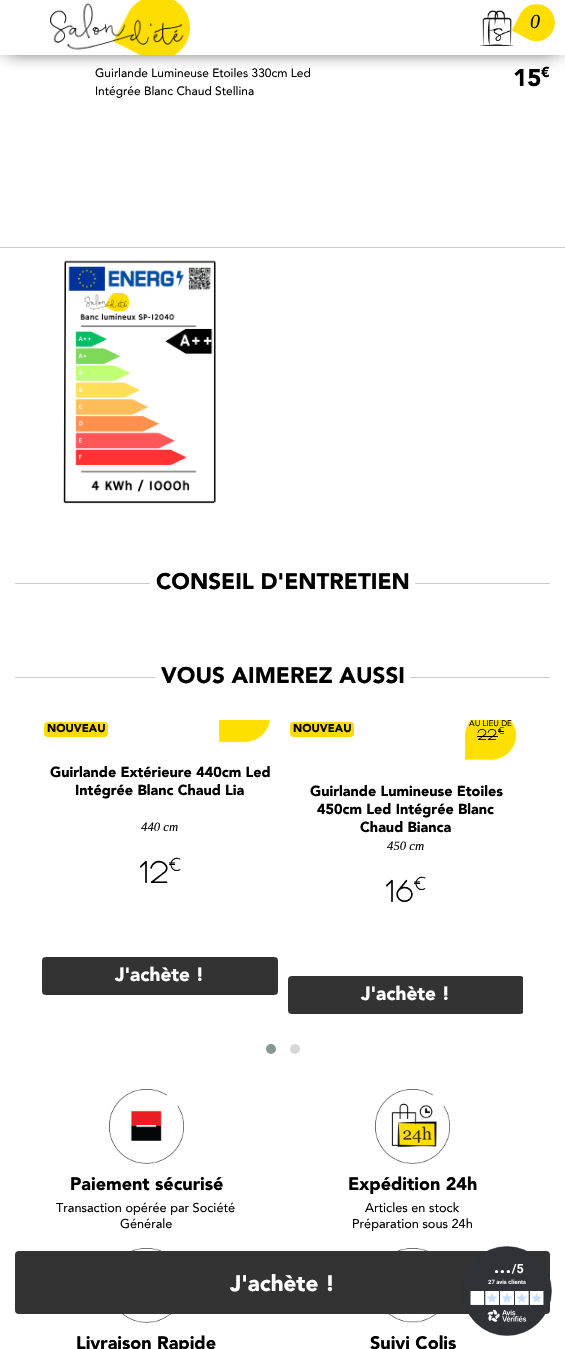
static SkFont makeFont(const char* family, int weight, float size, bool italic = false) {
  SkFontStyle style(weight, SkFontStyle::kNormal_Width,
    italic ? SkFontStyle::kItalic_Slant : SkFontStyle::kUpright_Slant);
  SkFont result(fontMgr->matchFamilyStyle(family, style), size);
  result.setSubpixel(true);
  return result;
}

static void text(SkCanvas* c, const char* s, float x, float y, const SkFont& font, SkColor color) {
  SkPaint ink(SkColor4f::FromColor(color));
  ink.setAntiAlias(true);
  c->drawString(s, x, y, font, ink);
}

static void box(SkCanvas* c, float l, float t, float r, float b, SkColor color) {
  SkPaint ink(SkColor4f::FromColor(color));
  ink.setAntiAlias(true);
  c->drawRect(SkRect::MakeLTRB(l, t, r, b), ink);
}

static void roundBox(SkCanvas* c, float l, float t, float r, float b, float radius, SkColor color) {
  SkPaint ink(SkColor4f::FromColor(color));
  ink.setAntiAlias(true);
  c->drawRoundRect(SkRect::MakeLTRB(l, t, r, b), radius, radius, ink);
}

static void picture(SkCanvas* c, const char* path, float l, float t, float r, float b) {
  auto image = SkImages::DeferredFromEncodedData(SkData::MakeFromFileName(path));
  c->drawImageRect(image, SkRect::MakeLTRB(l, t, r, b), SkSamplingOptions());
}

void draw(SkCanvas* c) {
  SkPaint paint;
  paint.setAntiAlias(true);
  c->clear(0xffffffff);
  paint.setColor(0xff000000);
  paint.setMaskFilter(SkMaskFilter::MakeBlur(kNormal_SkBlurStyle, 10));
  c->drawRect(SkRect::MakeLTRB(6, 6, 559, 49), paint);
  paint.setMaskFilter(nullptr);
  box(c, 0, 0, 565, 55, 0xffffffff);
  picture(c, "img_01.png", 50, 0, 190, 55);
  picture(c, "img_02.png", 480, 4, 555, 46);
  SkFont face1 = makeFont("Liberation Serif", 400, 20, true);
  text(c, "0", 530, 28, face1, 0xff000000);
  box(c, 0, 247, 565, 248, 0xffcccccc);
  SkFont face2 = makeFont("Avenir", 400, 12);
  text(c, "Guirlande Lumineuse Etoiles 330cm Led", 95, 77, face2, 0xff000000);
  text(c, "Intégrée Blanc Chaud Stellina", 95, 95, face2, 0xff000000);
  SkFont face3 = makeFont("Avenir", 900, 24);
  text(c, "15", 513, 86, face3, 0xff000000);
  SkFont face4 = makeFont("Avenir", 900, 14.4f);
  text(c, "€", 541, 77, face4, 0xff000000);
  picture(c, "img_08.png", 122, 1248, 171, 1323);
  picture(c, "img_09.png", 388, 1248, 437, 1323);
  roundBox(c, 15, 1251, 550, 1314, 4, 0xff333333);
  SkFont face5 = makeFont("Avenir", 900, 22.4f);
  text(c, "J'achète !", 230, 1291, face5, 0xffffffff);
  picture(c, "img_03.png", 63, 260, 216, 504);
  box(c, 15, 583, 550, 584, 0xffcccccc);
  box(c, 150, 583, 415, 584, 0xffffffff);
  text(c, "CONSEIL D'ENTRETIEN", 156, 589, face5, 0xff000000);
  box(c, 15, 677, 550, 678, 0xffcccccc);
  box(c, 155, 677, 410, 678, 0xffffffff);
  text(c, "VOUS AIMEREZ AUSSI", 161, 683, face5, 0xff000000);
  roundBox(c, 44, 722, 108, 737, 4, 0xfffcdc00);
  SkFont face6 = makeFont("Avenir", 900, 11.25f);
  text(c, "NOUVEAU", 47, 732, face6, 0xff000000);
  picture(c, "img_04.png", 218, 720, 271, 743);
  text(c, "Guirlande Extérieure 440cm Led", 50, 777, face4, 0xff000000);
  text(c, "Intégrée Blanc Chaud Lia", 75, 795, face4, 0xff000000);
  SkFont face7 = makeFont("Liberation Serif", 400, 12.75f, true);
  text(c, "440 cm", 141, 831, face7, 0xff000000);
  SkFont face8 = makeFont("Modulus", 500, 32);
  text(c, "12", 139, 883, face8, 0xff000000);
  SkFont face9 = makeFont("Modulus", 500, 19);
  text(c, "€", 169, 871, face9, 0xff000000);
  roundBox(c, 42, 957, 278, 995, 4, 0xff333333);
  SkFont face10 = makeFont("Avenir", 900, 19);
  text(c, "J'achète !", 115, 981, face10, 0xffffffff);
  roundBox(c, 290, 722, 354, 737, 4, 0xfffcdc00);
  text(c, "NOUVEAU", 293, 732, face6, 0xff000000);
  picture(c, "img_05.png", 464, 720, 517, 761);
  SkFont face11 = makeFont("Avenir", 400, 8);
  text(c, "AU LIEU DE", 469, 726, face11, 0xff000000);
  SkFont face12 = makeFont("Modulus", 500, 16);
  text(c, "22", 477, 740, face12, 0xff000000);
  box(c, 477, 736, 498, 737, 0xff000000);
  SkFont face13 = makeFont("Modulus", 500, 10);
  text(c, "€", 498, 734, face13, 0xff000000);
  box(c, 498, 731, 504, 732, 0xff000000);
  text(c, "Guirlande Lumineuse Etoiles", 310, 796, face4, 0xff000000);
  text(c, "450cm Led Intégrée Blanc", 317, 814, face4, 0xff000000);
  text(c, "Chaud Bianca", 360, 832, face4, 0xff000000);
  text(c, "450 cm", 387, 850, face7, 0xff000000);
  text(c, "16", 385, 902, face8, 0xff000000);
  text(c, "€", 414, 890, face9, 0xff000000);
  c->save();
  c->clipRect(SkRect::MakeLTRB(42, 700, 523, 1029));
  roundBox(c, 288, 976, 524, 1014, 4, 0xff333333);
  c->restore();
  text(c, "J'achète !", 361, 1000, face10, 0xffffffff);
  paint.setColor(0xff869791);
  c->drawCircle(271, 1049, 5, paint);
  paint.setColor(0xffd6d6d6);
  c->drawCircle(295, 1049, 5, paint);
  picture(c, "img_06.png", 109, 1089, 184, 1164);
  SkFont face14 = makeFont("Avenir", 900, 18);
  text(c, "Paiement sécurisé", 70, 1190, face14, 0xff000000);
  SkFont face15 = makeFont("Avenir", 400, 12.75f);
  text(c, "Transaction opérée par Société", 56, 1212, face15, 0xff000000);
  text(c, "Générale", 120, 1228, face15, 0xff000000);
  picture(c, "img_07.png", 375, 1089, 450, 1164);
  text(c, "Expédition 24h", 348, 1190, face14, 0xff000000);
  text(c, "Articles en stock", 365, 1212, face15, 0xff000000);
  text(c, "Préparation sous 24h", 352, 1228, face15, 0xff000000);
  text(c, "Livraison Rapide", 76, 1349, face14, 0xff000000);
  text(c, "Suivi Colis", 370, 1349, face14, 0xff000000);
  picture(c, "img_10.png", 462, 1246, 552, 1336);
}
